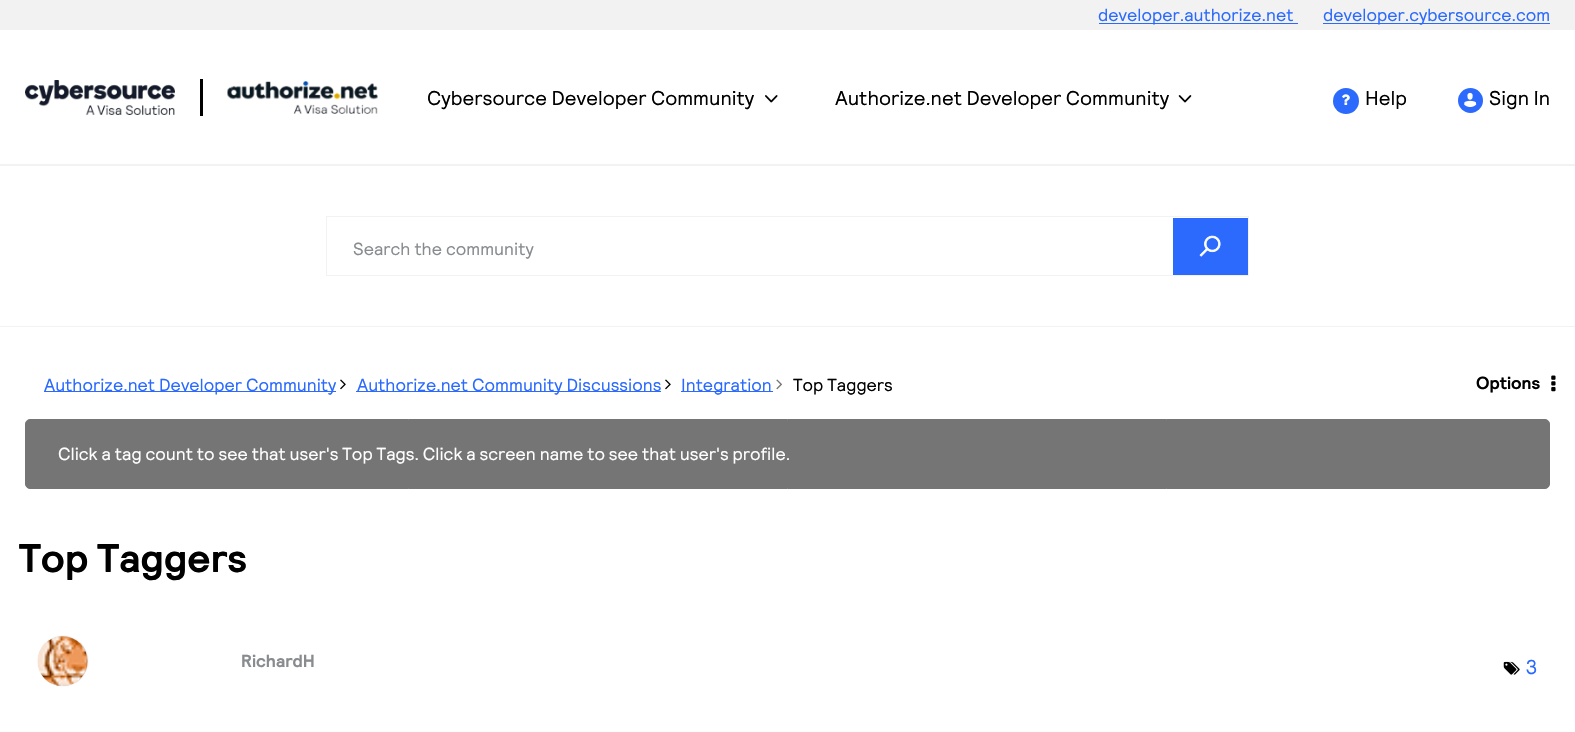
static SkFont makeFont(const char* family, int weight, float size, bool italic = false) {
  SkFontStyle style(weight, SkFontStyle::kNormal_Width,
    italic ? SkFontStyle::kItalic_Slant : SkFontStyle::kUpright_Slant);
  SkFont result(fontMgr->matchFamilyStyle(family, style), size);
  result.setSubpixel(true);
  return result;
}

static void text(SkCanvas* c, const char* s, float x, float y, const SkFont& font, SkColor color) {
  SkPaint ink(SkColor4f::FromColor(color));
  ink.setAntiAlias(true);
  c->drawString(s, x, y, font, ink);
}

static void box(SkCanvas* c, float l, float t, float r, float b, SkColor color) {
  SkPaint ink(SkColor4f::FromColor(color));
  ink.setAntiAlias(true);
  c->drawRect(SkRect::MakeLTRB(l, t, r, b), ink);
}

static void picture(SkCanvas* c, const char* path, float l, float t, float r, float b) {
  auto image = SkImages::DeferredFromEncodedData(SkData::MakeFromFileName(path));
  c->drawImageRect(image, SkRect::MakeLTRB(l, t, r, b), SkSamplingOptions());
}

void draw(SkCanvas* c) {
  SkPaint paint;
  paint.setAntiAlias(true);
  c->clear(0xffffffff);
  box(c, 0, 0, 1575, 30, 0xfff2f2f2);
  box(c, 1099, 23, 1298, 24, 0xff2b6afd);
  SkFont face1 = makeFont("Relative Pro", 400, 17.5f);
  text(c, "developer.authorize.net", 1098, 21, face1, 0xff2b6afd);
  box(c, 1323, 23, 1550, 24, 0xff2b6afd);
  text(c, "developer.cybersource.com", 1323, 21, face1, 0xff2b6afd);
  box(c, 0, 164, 1575, 166, 0xfff2f2f2);
  picture(c, "img_01.png", 25, 80, 175, 115);
  box(c, 200, 79, 203, 116, 0xff000000);
  picture(c, "img_02.png", 227, 81, 378, 114);
  SkFont face2 = makeFont("Relative Pro", 400, 20);
  text(c, "Cybersource Developer Community", 427, 105, face2, 0xff000000);
  picture(c, "img_03.png", 765, 95, 778, 103);
  text(c, "Authorize.net Developer Community", 835, 105, face2, 0xff000000);
  picture(c, "img_04.png", 1178, 95, 1192, 103);
  paint.setColor(0xff2b6afd);
  c->drawCircle(1346, 101, 13, paint);
  picture(c, "img_05.png", 1342, 94, 1350, 105);
  text(c, "Help", 1365, 105, face2, 0xff000000);
  c->drawCircle(1470.5f, 100.5f, 12.5f, paint);
  picture(c, "img_06.png", 1464, 92, 1477, 107);
  text(c, "Sign In", 1489, 105, face2, 0xff000000);
  box(c, 0, 326, 1575, 327, 0xfff2f2f2);
  paint.setStyle(SkPaint::kStroke_Style);
  paint.setStrokeWidth(1);
  paint.setColor(0xfff2f2f2);
  c->drawRect(SkRect::MakeLTRB(326.5f, 216.5f, 1248.5f, 275.5f), paint);
  text(c, "Search the community", 353, 255, face1, 0xff888c8f);
  box(c, 1173, 218, 1248, 275, 0xff2b6afd);
  picture(c, "img_07.png", 1199, 235, 1221, 257);
  box(c, 44, 391, 336, 392, 0xff2b6afd);
  text(c, "Authorize.net Developer Community", 44, 391, face1, 0xff2b6afd);
  picture(c, "img_08.png", 340, 379, 346, 390);
  box(c, 356, 391, 661, 392, 0xff2b6afd);
  text(c, "Authorize.net Community Discussions", 357, 391, face1, 0xff2b6afd);
  picture(c, "img_08.png", 665, 379, 671, 390);
  box(c, 681, 391, 773, 392, 0xff2b6afd);
  text(c, "Integration", 681, 391, face1, 0xff2b6afd);
  picture(c, "img_09.png", 776, 379, 782, 390);
  text(c, "Top Taggers", 793, 391, face1, 0xff000000);
  SkFont face3 = makeFont("Relative Pro", 700, 17.5f);
  text(c, "Options", 1476, 389, face3, 0xff000000);
  picture(c, "img_10.png", 1551, 375, 1556, 392);
  paint.setStyle(SkPaint::kFill_Style);
  paint.setColor(0xff757575);
  c->drawRoundRect(SkRect::MakeLTRB(25.5f, 419.5f, 1549.5f, 488.5f), 4.5f, 4.5f, paint);
  paint.setStyle(SkPaint::kStroke_Style);
  c->drawRoundRect(SkRect::MakeLTRB(25.5f, 419.5f, 1549.5f, 488.5f), 4.5f, 4.5f, paint);
  text(c, "Click a tag count to see that user's Top Tags. Click a screen name to see that user's profile.", 58, 460, face1, 0xffffffff);
  SkFont face4 = makeFont("Relative Pro", 700, 40);
  text(c, "Top Taggers", 19, 572, face4, 0xff000000);
  paint.setStyle(SkPaint::kFill_Style);
  paint.setColor(0xffc4c4c4);
  paint.setMaskFilter(SkMaskFilter::MakeBlur(kNormal_SkBlurStyle, 0.5f));
  c->drawRoundRect(SkRect::MakeLTRB(38, 636, 88, 686), 25, 25, paint);
  paint.setMaskFilter(nullptr);
  picture(c, "img_11.png", 37, 636, 88, 686);
  text(c, "RichardH", 241, 667, face3, 0xff888c8f);
  picture(c, "img_12.png", 1503, 661, 1520, 675);
  text(c, "3", 1526, 674, face2, 0xff2b6afd);
}
